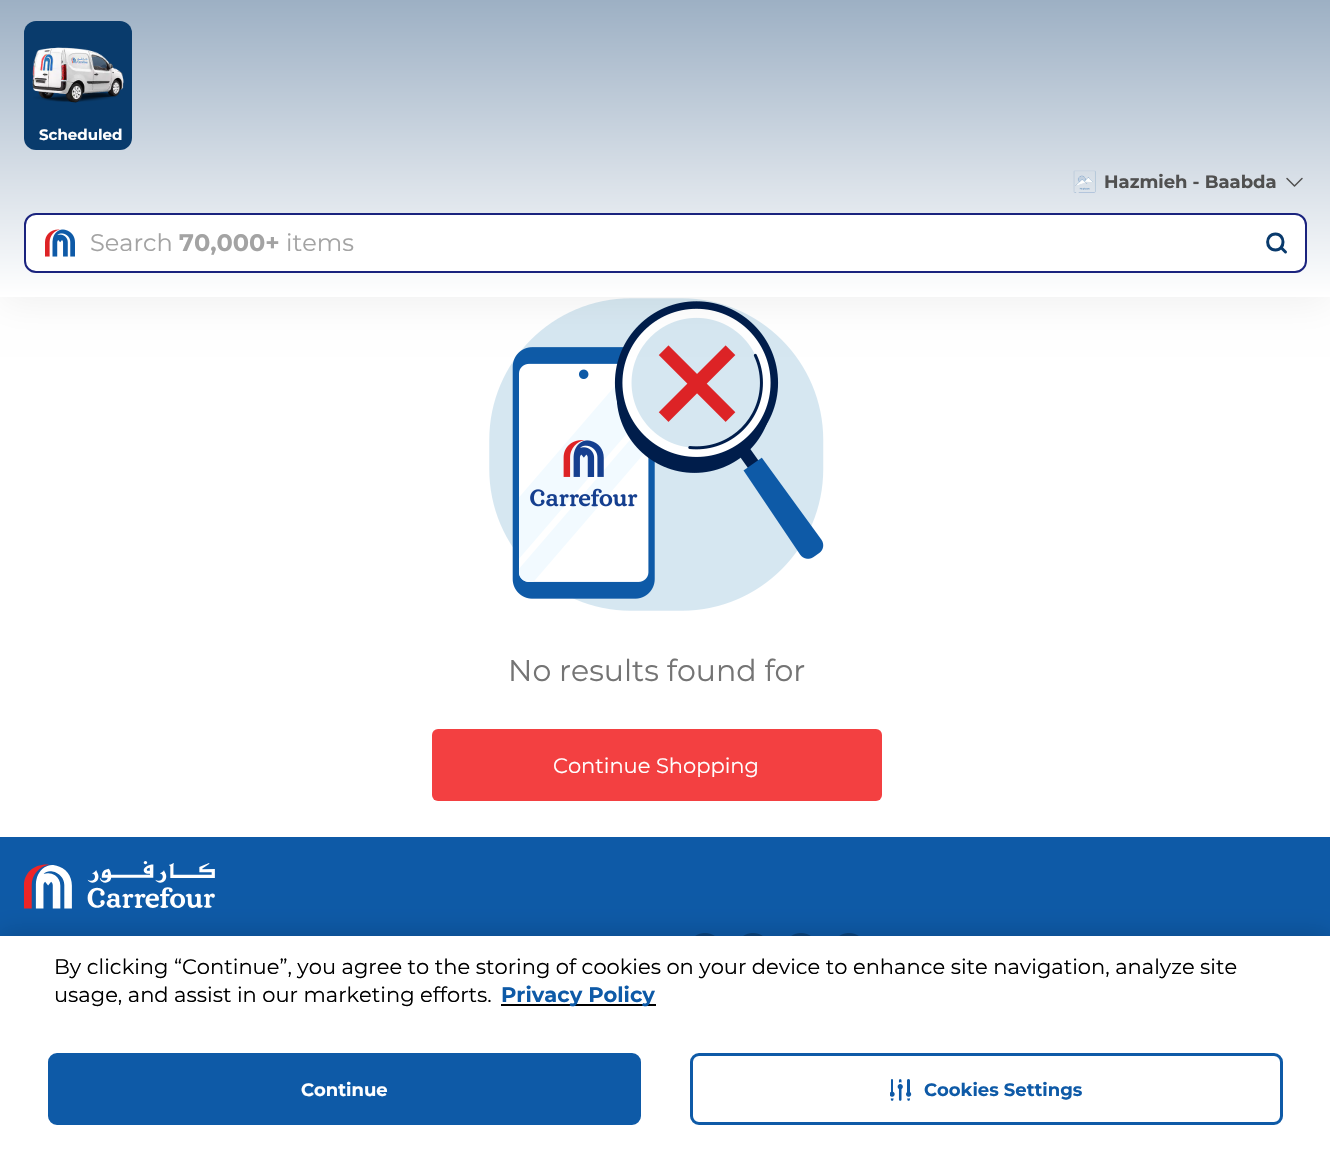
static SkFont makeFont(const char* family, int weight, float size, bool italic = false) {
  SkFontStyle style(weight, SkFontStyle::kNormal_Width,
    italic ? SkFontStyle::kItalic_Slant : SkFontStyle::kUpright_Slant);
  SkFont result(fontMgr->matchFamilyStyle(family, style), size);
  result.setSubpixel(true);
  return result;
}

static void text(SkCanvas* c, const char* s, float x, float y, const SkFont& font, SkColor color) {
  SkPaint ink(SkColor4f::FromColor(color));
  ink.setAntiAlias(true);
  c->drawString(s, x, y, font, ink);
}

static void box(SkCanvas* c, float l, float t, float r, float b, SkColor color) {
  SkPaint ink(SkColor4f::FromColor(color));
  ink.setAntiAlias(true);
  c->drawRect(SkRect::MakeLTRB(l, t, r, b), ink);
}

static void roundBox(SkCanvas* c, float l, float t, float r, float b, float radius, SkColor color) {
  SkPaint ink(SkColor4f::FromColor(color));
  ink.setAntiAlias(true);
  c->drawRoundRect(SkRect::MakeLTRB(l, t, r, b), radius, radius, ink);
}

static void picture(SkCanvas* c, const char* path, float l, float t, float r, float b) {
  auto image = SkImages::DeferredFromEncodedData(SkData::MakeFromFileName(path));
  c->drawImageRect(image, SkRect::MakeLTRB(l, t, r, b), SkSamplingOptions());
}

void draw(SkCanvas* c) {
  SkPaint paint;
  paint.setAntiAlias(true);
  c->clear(0xffffffff);
  picture(c, "img_04.png", 489, 298, 824, 611);
  paint.setColor(0x0f000000);
  paint.setMaskFilter(SkMaskFilter::MakeBlur(kNormal_SkBlurStyle, 18));
  c->drawRect(SkRect::MakeLTRB(0, 6, 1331, 303), paint);
  paint.setMaskFilter(nullptr);
  {
    const SkColor colors[] = {0xff9db0c4, 0xffffffff};
    const float stops[] = {0, 1};
    const SkPoint ends[] = {{665, 0}, {665, 297}};
    paint.setShader(SkGradientShader::MakeLinear(ends, colors, stops, 2, SkTileMode::kClamp));
    paint.setAlpha(255);
  }
  c->drawRect(SkRect::MakeLTRB(0, 0, 1330, 297), paint);
  roundBox(c, 24, 21, 132, 150, 12, 0xff093b6c);
  picture(c, "img_01.png", 32, 47, 124, 103);
  SkFont face1 = makeFont("Montserrat", 700, 15);
  text(c, "Scheduled", 39, 140, face1, 0xffffffff);
  picture(c, "img_02.png", 1073, 170, 1096, 193);
  SkFont face2 = makeFont("Montserrat", 700, 18);
  text(c, "Hazmieh - Baabda", 1104, 188, face2, 0xff505050);
  paint.setStyle(SkPaint::kStroke_Style);
  paint.setStrokeWidth(1.5f);
  paint.setStrokeCap(SkPaint::kRound_Cap);
  paint.setStrokeJoin(SkPaint::kRound_Join);
  paint.setShader(nullptr);
  paint.setColor(0xff505050);
  c->drawPath(SkPathBuilder().moveTo(1302, 178.5f).lineTo(1294.5f, 186).lineTo(1287, 178.5f).detach(), paint);
  paint.setStyle(SkPaint::kFill_Style);
  paint.setColor(0xffffffff);
  c->drawRoundRect(SkRect::MakeLTRB(25, 214, 1306, 272), 11, 11, paint);
  paint.setStyle(SkPaint::kStroke_Style);
  paint.setStrokeWidth(2);
  paint.setStrokeCap(SkPaint::kButt_Cap);
  paint.setStrokeJoin(SkPaint::kMiter_Join);
  paint.setColor(0xff1a237e);
  c->drawRoundRect(SkRect::MakeLTRB(25, 214, 1306, 272), 11, 11, paint);
  picture(c, "img_03.png", 45, 229, 75, 257);
  SkFont face3 = makeFont("Montserrat", 400, 24);
  text(c, "Search", 90, 251, face3, 0xffa3a3a3);
  SkFont face4 = makeFont("Montserrat", 700, 24);
  text(c, "70,000+", 179, 251, face4, 0xffa3a3a3);
  text(c, "items", 286, 251, face3, 0xffa3a3a3);
  paint.setStrokeWidth(3);
  paint.setStrokeCap(SkPaint::kRound_Cap);
  paint.setStrokeJoin(SkPaint::kRound_Join);
  paint.setColor(0xff093a6c);
  c->drawPath(SkPathBuilder().moveTo(1275.5f, 250).cubicTo(1285.5f, 250, 1285.5f, 234, 1275.5f, 234).cubicTo(1265, 234, 1265, 250, 1275.5f, 250).close().moveTo(1281, 247.5f).lineTo(1285.5f, 252).detach(), paint);
  SkFont face5 = makeFont("Montserrat", 400, 30);
  text(c, "No results found for", 508, 681, face5, 0xff747474);
  roundBox(c, 432, 729, 882, 801, 6, 0xfff34041);
  SkFont face6 = makeFont("Montserrat", 400, 21);
  text(c, "Continue Shopping", 553, 773, face6, 0xffffffff);
  box(c, 0, 837, 1330, 936, 0xff0e5aa7);
  picture(c, "img_05.png", 24, 861, 215, 909);
  picture(c, "img_06.png", 695, 933, 715, 936);
  picture(c, "img_06.png", 743, 933, 763, 936);
  picture(c, "img_06.png", 791, 933, 811, 936);
  picture(c, "img_06.png", 839, 933, 859, 936);
  paint.setStyle(SkPaint::kFill_Style);
  paint.setColor(0x33000000);
  paint.setMaskFilter(SkMaskFilter::MakeBlur(kNormal_SkBlurStyle, 13.5f));
  c->drawRect(SkRect::MakeLTRB(0, 936, 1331, 1149), paint);
  paint.setMaskFilter(nullptr);
  box(c, 0, 936, 1330, 1149, 0xffffffff);
  text(c, "By clicking “Continue”, you agree to the storing of cookies on your device to enhance site navigation, analyze site", 54, 974, face6, 0xff000000);
  text(c, "usage, and assist in our marketing efforts.", 54, 1002, face6, 0xff000000);
  box(c, 501, 1004, 656, 1006, 0xff000000);
  SkFont face7 = makeFont("Montserrat", 700, 21);
  text(c, "Privacy Policy", 501, 1002, face7, 0xff0e5aa7);
  paint.setColor(0xff0e5aa7);
  c->drawRoundRect(SkRect::MakeLTRB(49.5f, 1054.5f, 639.5f, 1123.5f), 7.5f, 7.5f, paint);
  paint.setStyle(SkPaint::kStroke_Style);
  paint.setStrokeCap(SkPaint::kButt_Cap);
  paint.setStrokeJoin(SkPaint::kMiter_Join);
  c->drawRoundRect(SkRect::MakeLTRB(49.5f, 1054.5f, 639.5f, 1123.5f), 7.5f, 7.5f, paint);
  text(c, "Continue", 301, 1096, face2, 0xffffffff);
  c->drawRoundRect(SkRect::MakeLTRB(691.5f, 1054.5f, 1281.5f, 1123.5f), 7.5f, 7.5f, paint);
  picture(c, "img_07.png", 890, 1079, 912, 1101);
  text(c, "Cookies Settings", 924, 1096, face2, 0xff0e5aa7);
}
